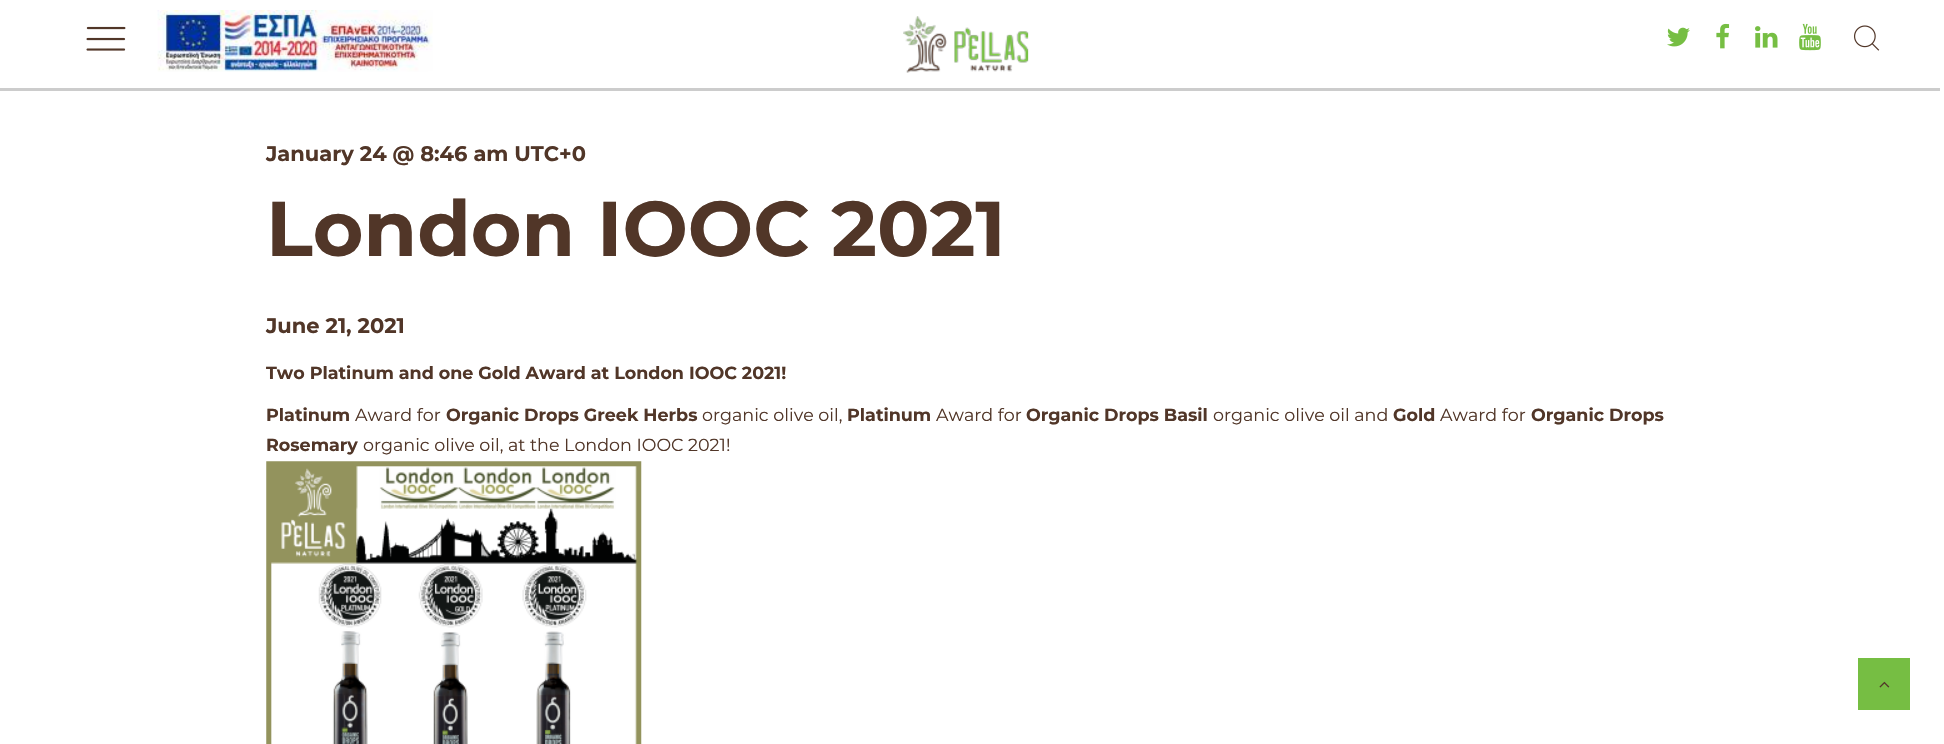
static SkFont makeFont(const char* family, int weight, float size, bool italic = false) {
  SkFontStyle style(weight, SkFontStyle::kNormal_Width,
    italic ? SkFontStyle::kItalic_Slant : SkFontStyle::kUpright_Slant);
  SkFont result(fontMgr->matchFamilyStyle(family, style), size);
  result.setSubpixel(true);
  return result;
}

static void text(SkCanvas* c, const char* s, float x, float y, const SkFont& font, SkColor color) {
  SkPaint ink(SkColor4f::FromColor(color));
  ink.setAntiAlias(true);
  c->drawString(s, x, y, font, ink);
}

static void box(SkCanvas* c, float l, float t, float r, float b, SkColor color) {
  SkPaint ink(SkColor4f::FromColor(color));
  ink.setAntiAlias(true);
  c->drawRect(SkRect::MakeLTRB(l, t, r, b), ink);
}

static void picture(SkCanvas* c, const char* path, float l, float t, float r, float b) {
  auto image = SkImages::DeferredFromEncodedData(SkData::MakeFromFileName(path));
  c->drawImageRect(image, SkRect::MakeLTRB(l, t, r, b), SkSamplingOptions());
}

void draw(SkCanvas* c) {
  SkPaint paint;
  paint.setAntiAlias(true);
  c->clear(0xffffffff);
  paint.setColor(0xffcccccc);
  c->drawPath(SkPathBuilder().moveTo(-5, 4).lineTo(-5, 91).lineTo(1940, 91).lineTo(1940, 88).lineTo(0, 88).lineTo(0, 4).close().detach(), paint);
  picture(c, "img_01.png", 86, 26, 126, 51);
  picture(c, "img_02.png", 157, 10, 433, 72);
  picture(c, "img_03.png", 903, 16, 1029, 73);
  picture(c, "img_04.png", 1667, 27, 1690, 47);
  picture(c, "img_05.png", 1716, 23, 1730, 49);
  picture(c, "img_06.png", 1755, 26, 1778, 48);
  picture(c, "img_07.png", 1799, 23, 1821, 51);
  picture(c, "img_08.png", 1854, 25, 1880, 51);
  SkFont face1 = makeFont("Montserrat", 700, 21);
  text(c, "January 24 @ 8:46 am UTC+0", 266, 161, face1, 0xff513628);
  SkFont face2 = makeFont("Montserrat", 700, 77.5f);
  text(c, "London IOOC 2021", 266, 256, face2, 0xff513628);
  text(c, "June 21, 2021", 266, 333, face1, 0xff513628);
  SkFont face3 = makeFont("Montserrat", 700, 17.5f);
  text(c, "Two Platinum and one Gold Award at London IOOC 2021!", 266, 379, face3, 0xff513628);
  text(c, "Platinum", 266, 421, face3, 0xff513628);
  SkFont face4 = makeFont("Montserrat", 400, 17.5f);
  text(c, "Award for", 355, 421, face4, 0xff513628);
  text(c, "Organic Drops Greek Herbs", 446, 421, face3, 0xff513628);
  text(c, "organic olive oil,", 702, 421, face4, 0xff513628);
  text(c, "Platinum", 847, 421, face3, 0xff513628);
  text(c, "Award for", 936, 421, face4, 0xff513628);
  text(c, "Organic Drops Basil", 1026, 421, face3, 0xff513628);
  text(c, "organic olive oil and", 1213, 421, face4, 0xff513628);
  text(c, "Gold", 1393, 421, face3, 0xff513628);
  text(c, "Award for", 1440, 421, face4, 0xff513628);
  text(c, "Organic Drops", 1531, 421, face3, 0xff513628);
  text(c, "Rosemary", 266, 451, face3, 0xff513628);
  text(c, "organic olive oil, at the London IOOC 2021!", 363, 451, face4, 0xff513628);
  picture(c, "img_09.png", 266, 461, 642, 744);
  box(c, 1858, 658, 1910, 710, 0xff76be43);
  picture(c, "img_10.png", 1879, 681, 1890, 688);
}
